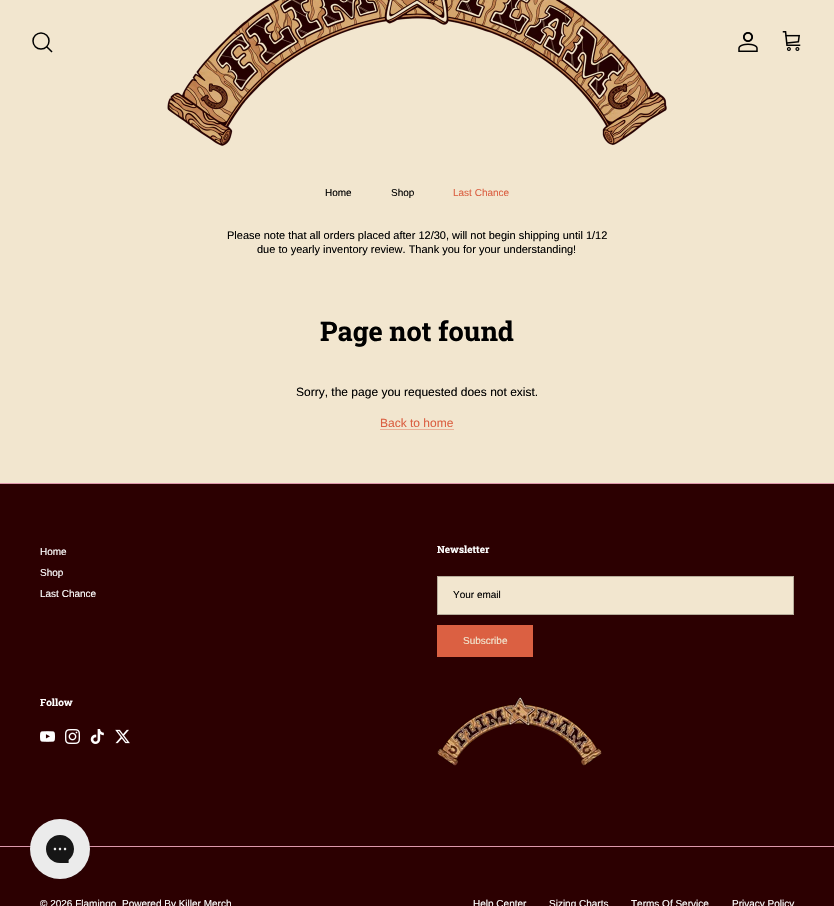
static SkFont makeFont(const char* family, int weight, float size, bool italic = false) {
  SkFontStyle style(weight, SkFontStyle::kNormal_Width,
    italic ? SkFontStyle::kItalic_Slant : SkFontStyle::kUpright_Slant);
  SkFont result(fontMgr->matchFamilyStyle(family, style), size);
  result.setSubpixel(true);
  return result;
}

static void text(SkCanvas* c, const char* s, float x, float y, const SkFont& font, SkColor color) {
  SkPaint ink(SkColor4f::FromColor(color));
  ink.setAntiAlias(true);
  c->drawString(s, x, y, font, ink);
}

static void box(SkCanvas* c, float l, float t, float r, float b, SkColor color) {
  SkPaint ink(SkColor4f::FromColor(color));
  ink.setAntiAlias(true);
  c->drawRect(SkRect::MakeLTRB(l, t, r, b), ink);
}

static void picture(SkCanvas* c, const char* path, float l, float t, float r, float b) {
  auto image = SkImages::DeferredFromEncodedData(SkData::MakeFromFileName(path));
  c->drawImageRect(image, SkRect::MakeLTRB(l, t, r, b), SkSamplingOptions());
}

void draw(SkCanvas* c) {
  SkPaint paint;
  paint.setAntiAlias(true);
  c->clear(0xfff2e6cf);
  paint.setStyle(SkPaint::kStroke_Style);
  paint.setStrokeWidth(1.5f);
  paint.setColor(0xff000000);
  c->drawCircle(41, 41, 8, paint);
  paint.setStrokeCap(SkPaint::kSquare_Cap);
  c->drawPath(SkPathBuilder().moveTo(47, 47).lineTo(51.5f, 51.5f).detach(), paint);
  picture(c, "img_01.png", 167, 0, 667, 146);
  picture(c, "img_02.png", 738, 32, 758, 52);
  picture(c, "img_03.png", 782, 31, 801, 51);
  SkFont face1 = makeFont("Liberation Sans", 400, 10);
  text(c, "Home", 325, 196, face1, 0xff000000);
  text(c, "Shop", 391, 196, face1, 0xff000000);
  text(c, "Last Chance", 453, 196, face1, 0xffdb6042);
  SkFont face2 = makeFont("Liberation Sans", 400, 11);
  text(c, "Please note that all orders placed after 12/30, will not begin shipping until 1/12", 227, 239, face2, 0xff000000);
  text(c, "due to yearly inventory review. Thank you for your understanding!", 257, 253, face2, 0xff000000);
  SkFont face3 = makeFont("Roboto Slab", 700, 27);
  text(c, "Page not found", 320, 341, face3, 0xff000000);
  SkFont face4 = makeFont("Liberation Sans", 400, 12);
  text(c, "Sorry, the page you requested does not exist.", 296, 396, face4, 0xff000000);
  text(c, "Back to home", 380, 427, face4, 0xffdb6042);
  box(c, 380, 429, 454, 430, 0xffe9b097);
  box(c, 0, 484, 834, 906, 0xff2c0001);
  box(c, 0, 483, 834, 484, 0xffdd98ab);
  text(c, "Home", 40, 555, face1, 0xffffffff);
  text(c, "Shop", 40, 576, face1, 0xffffffff);
  text(c, "Last Chance", 40, 597, face1, 0xffffffff);
  SkFont face5 = makeFont("Roboto Slab", 700, 10);
  text(c, "Newsletter", 437, 553, face5, 0xffffffff);
  paint.setStyle(SkPaint::kFill_Style);
  paint.setColor(0xfff2e6cf);
  c->drawRect(SkRect::MakeLTRB(437.5f, 576.5f, 793.5f, 614.5f), paint);
  paint.setStyle(SkPaint::kStroke_Style);
  paint.setStrokeWidth(1);
  paint.setStrokeCap(SkPaint::kButt_Cap);
  paint.setColor(0xffb6ad9b);
  c->drawRect(SkRect::MakeLTRB(437.5f, 576.5f, 793.5f, 614.5f), paint);
  text(c, "Your email", 453, 598, face1, 0xff000000);
  box(c, 437, 625, 533, 657, 0xffdb6042);
  text(c, "Subscribe", 463, 644, face1, 0xfff2e6cf);
  text(c, "Follow", 40, 706, face5, 0xffffffff);
  picture(c, "img_04.png", 40, 731, 55, 742);
  picture(c, "img_05.png", 65, 729, 80, 744);
  picture(c, "img_06.png", 90, 729, 104, 744);
  picture(c, "img_07.png", 115, 729, 130, 744);
  picture(c, "img_08.png", 437, 697, 602, 766);
  box(c, 0, 846, 834, 847, 0xffdd98ab);
  text(c, "© 2026 Flamingo", 40, 907, face1, 0xffffffff);
  text(c, "Powered By Killer Merch", 122, 907, face1, 0xffffffff);
  text(c, "Help Center", 473, 907, face1, 0xffffffff);
  text(c, "Sizing Charts", 549, 907, face1, 0xffffffff);
  text(c, "Terms Of Service", 631, 907, face1, 0xffffffff);
  text(c, "Privacy Policy", 732, 907, face1, 0xffffffff);
  picture(c, "img_09.png", 28, 819, 92, 879);
}
